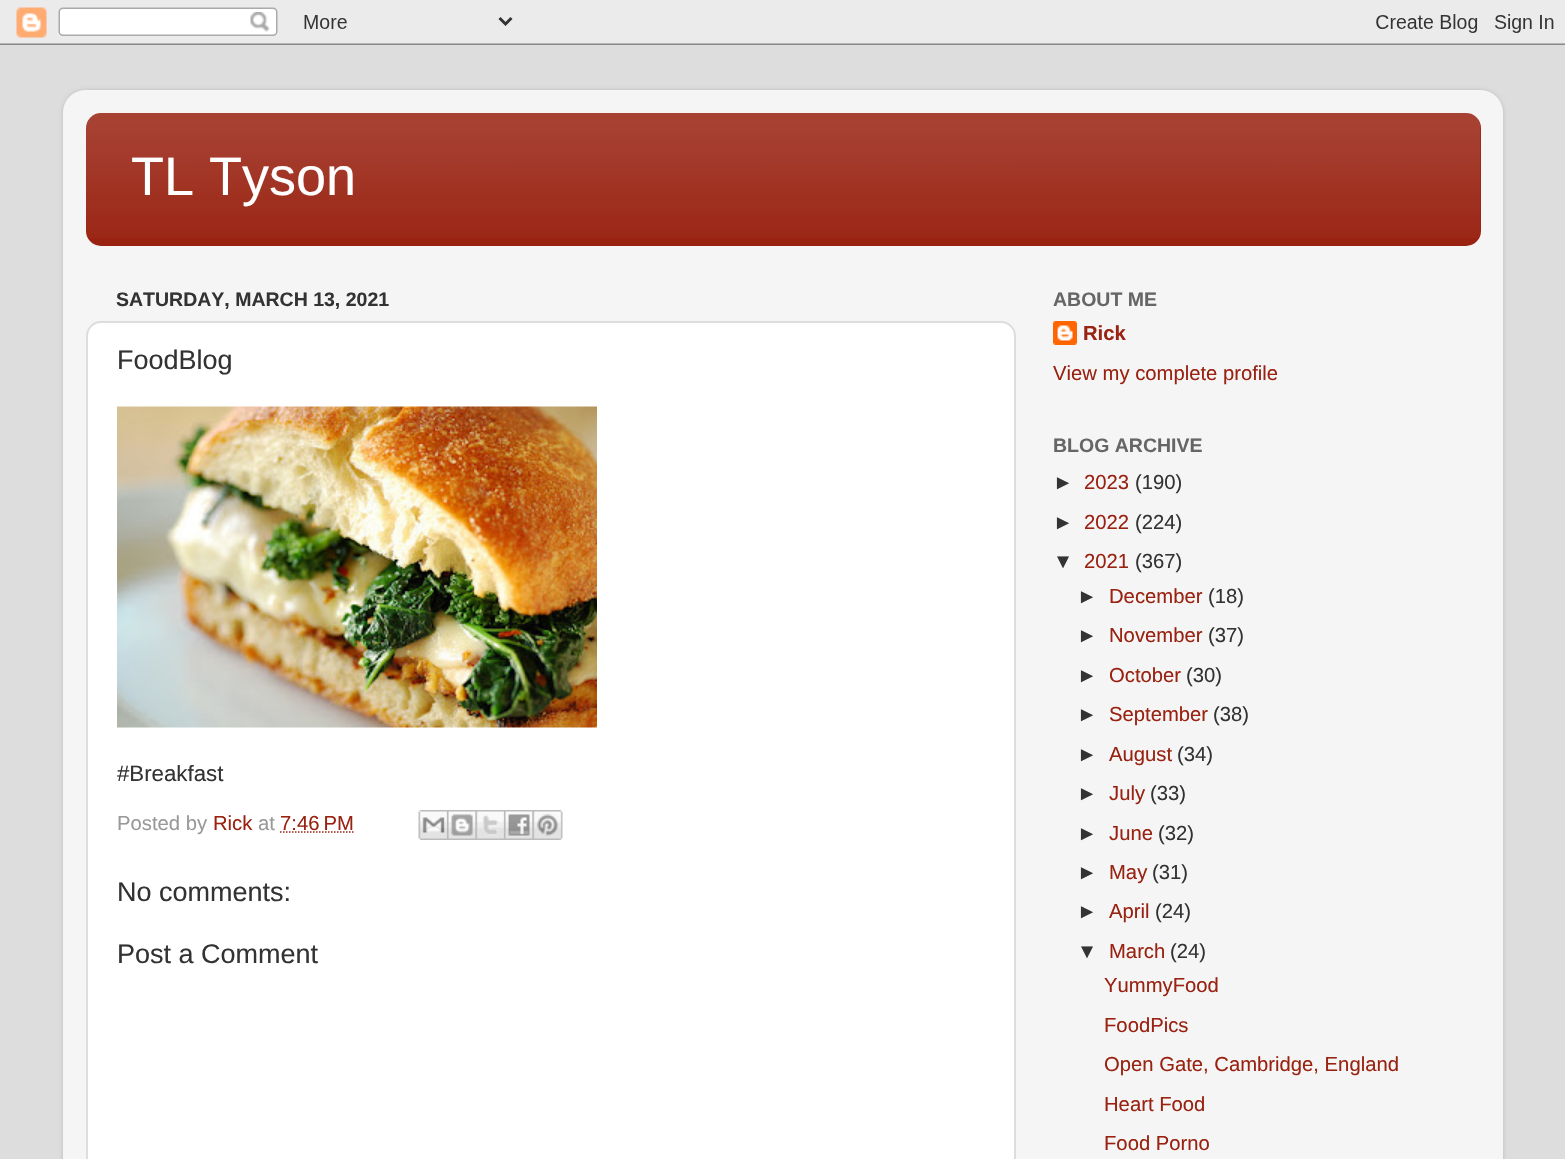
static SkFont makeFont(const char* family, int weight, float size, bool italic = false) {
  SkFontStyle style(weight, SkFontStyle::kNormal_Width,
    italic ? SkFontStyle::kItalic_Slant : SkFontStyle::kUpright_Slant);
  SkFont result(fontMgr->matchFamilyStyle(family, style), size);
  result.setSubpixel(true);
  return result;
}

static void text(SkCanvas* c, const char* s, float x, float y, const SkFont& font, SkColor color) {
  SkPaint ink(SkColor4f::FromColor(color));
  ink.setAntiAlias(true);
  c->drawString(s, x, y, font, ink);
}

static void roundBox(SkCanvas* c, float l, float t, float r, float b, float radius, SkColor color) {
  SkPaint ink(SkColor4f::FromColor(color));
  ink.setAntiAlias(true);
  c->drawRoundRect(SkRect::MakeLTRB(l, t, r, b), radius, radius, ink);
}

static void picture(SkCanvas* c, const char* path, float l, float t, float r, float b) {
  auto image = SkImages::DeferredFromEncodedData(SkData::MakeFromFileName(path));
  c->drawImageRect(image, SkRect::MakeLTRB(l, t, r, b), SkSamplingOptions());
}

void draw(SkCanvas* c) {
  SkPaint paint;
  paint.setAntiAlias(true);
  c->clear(0xffdddddd);
  picture(c, "img_01.png", 0, 0, 1565, 45);
  c->save();
  c->clipPath(SkPathBuilder(SkPathFillType::kEvenOdd).moveTo(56, 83).lineTo(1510, 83).lineTo(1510, 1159).lineTo(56, 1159).close().moveTo(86, 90).lineTo(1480, 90).cubicTo(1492.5f, 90, 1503, 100.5f, 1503, 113).lineTo(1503, 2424).cubicTo(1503, 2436.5f, 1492.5f, 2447, 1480, 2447).lineTo(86, 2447).cubicTo(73.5f, 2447, 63, 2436.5f, 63, 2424).lineTo(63, 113).cubicTo(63, 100.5f, 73.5f, 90, 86, 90).close().detach(), true);
  paint.setColor(0x26000000);
  paint.setMaskFilter(SkMaskFilter::MakeBlur(kNormal_SkBlurStyle, 2));
  c->drawRoundRect(SkRect::MakeLTRB(63, 90, 1503, 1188), 23, 23, paint);
  paint.setMaskFilter(nullptr);
  c->restore();
  picture(c, "img_02.png", 63, 90, 1503, 1159);
  roundBox(c, 86, 113, 1481, 246, 15, 0xff992211);
  picture(c, "img_03.png", 86, 113, 1481, 238);
  SkFont face1 = makeFont("Liberation Sans", 400, 54);
  text(c, "TL Tyson", 131, 195, face1, 0xffffffff);
  SkFont face2 = makeFont("Liberation Sans", 700, 19.5f);
  text(c, "SATURDAY, MARCH 13, 2021", 116, 306, face2, 0xff333333);
  paint.setColor(0xffffffff);
  c->drawRoundRect(SkRect::MakeLTRB(87, 322, 1015, 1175), 14, 14, paint);
  paint.setStyle(SkPaint::kStroke_Style);
  paint.setStrokeWidth(2);
  paint.setColor(0xffdddddd);
  c->drawRoundRect(SkRect::MakeLTRB(87, 322, 1015, 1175), 14, 14, paint);
  SkFont face3 = makeFont("Liberation Sans", 400, 27);
  text(c, "FoodBlog", 117, 369, face3, 0xff333333);
  picture(c, "img_04.png", 117, 406, 597, 728);
  SkFont face4 = makeFont("Liberation Sans", 400, 22.25f);
  text(c, "#Breakfast", 117, 781, face4, 0xff333333);
  SkFont face5 = makeFont("Liberation Sans", 400, 20.25f);
  text(c, "Posted by", 117, 830, face5, 0xff999999);
  text(c, "Rick", 213, 830, face5, 0xff992211);
  text(c, "at", 258, 830, face5, 0xff999999);
  text(c, "7:46 PM", 280, 830, face5, 0xff992211);
  paint.setStrokeWidth(1.5f);
  paint.setColor(0xff992211);
  paint.setPathEffect(SkDashPathEffect::Make({{1.5f, 1.5f}}, 0));
  c->drawPath(SkPathBuilder().moveTo(280, 832).lineTo(354, 832).detach(), paint);
  paint.setPathEffect(nullptr);
  picture(c, "img_05.png", 418, 810, 447, 840);
  picture(c, "img_06.png", 447, 810, 476, 840);
  picture(c, "img_07.png", 475, 810, 504, 840);
  picture(c, "img_08.png", 504, 810, 533, 840);
  picture(c, "img_09.png", 532, 810, 563, 840);
  text(c, "No comments:", 117, 901, face3, 0xff333333);
  text(c, "Post a Comment", 117, 963, face3, 0xff333333);
  text(c, "ABOUT ME", 1053, 306, face2, 0xff666666);
  picture(c, "img_10.png", 1053, 321, 1077, 345);
  SkFont face6 = makeFont("Liberation Sans", 700, 20.25f);
  text(c, "Rick", 1083, 340, face6, 0xff992211);
  text(c, "View my complete profile", 1053, 380, face5, 0xff992211);
  text(c, "BLOG ARCHIVE", 1053, 452, face2, 0xff666666);
  text(c, "►", 1053, 489, face5, 0xff333333);
  text(c, "2023", 1084, 489, face5, 0xff992211);
  text(c, "(190)", 1135, 489, face5, 0xff333333);
  text(c, "►", 1053, 529, face5, 0xff333333);
  text(c, "2022", 1084, 529, face5, 0xff992211);
  text(c, "(224)", 1135, 529, face5, 0xff333333);
  text(c, "▼", 1053, 568, face5, 0xff333333);
  text(c, "2021", 1084, 568, face5, 0xff992211);
  text(c, "(367)", 1135, 568, face5, 0xff333333);
  text(c, "►", 1077, 603, face5, 0xff333333);
  text(c, "December", 1109, 603, face5, 0xff992211);
  text(c, "(18)", 1208, 603, face5, 0xff333333);
  text(c, "►", 1077, 642, face5, 0xff333333);
  text(c, "November", 1109, 642, face5, 0xff992211);
  text(c, "(37)", 1208, 642, face5, 0xff333333);
  text(c, "►", 1077, 682, face5, 0xff333333);
  text(c, "October", 1109, 682, face5, 0xff992211);
  text(c, "(30)", 1186, 682, face5, 0xff333333);
  text(c, "►", 1077, 721, face5, 0xff333333);
  text(c, "September", 1109, 721, face5, 0xff992211);
  text(c, "(38)", 1213, 721, face5, 0xff333333);
  text(c, "►", 1077, 761, face5, 0xff333333);
  text(c, "August", 1109, 761, face5, 0xff992211);
  text(c, "(34)", 1177, 761, face5, 0xff333333);
  text(c, "►", 1077, 800, face5, 0xff333333);
  text(c, "July", 1109, 800, face5, 0xff992211);
  text(c, "(33)", 1150, 800, face5, 0xff333333);
  text(c, "►", 1077, 840, face5, 0xff333333);
  text(c, "June", 1109, 840, face5, 0xff992211);
  text(c, "(32)", 1158, 840, face5, 0xff333333);
  text(c, "►", 1077, 879, face5, 0xff333333);
  text(c, "May", 1109, 879, face5, 0xff992211);
  text(c, "(31)", 1152, 879, face5, 0xff333333);
  text(c, "►", 1077, 918, face5, 0xff333333);
  text(c, "April", 1109, 918, face5, 0xff992211);
  text(c, "(24)", 1155, 918, face5, 0xff333333);
  text(c, "▼", 1077, 958, face5, 0xff333333);
  text(c, "March", 1109, 958, face5, 0xff992211);
  text(c, "(24)", 1170, 958, face5, 0xff333333);
  text(c, "YummyFood", 1104, 992, face5, 0xff992211);
  text(c, "FoodPics", 1104, 1032, face5, 0xff992211);
  text(c, "Open Gate, Cambridge, England", 1104, 1071, face5, 0xff992211);
  text(c, "Heart Food", 1104, 1111, face5, 0xff992211);
  text(c, "Food Porno", 1104, 1150, face5, 0xff992211);
}
